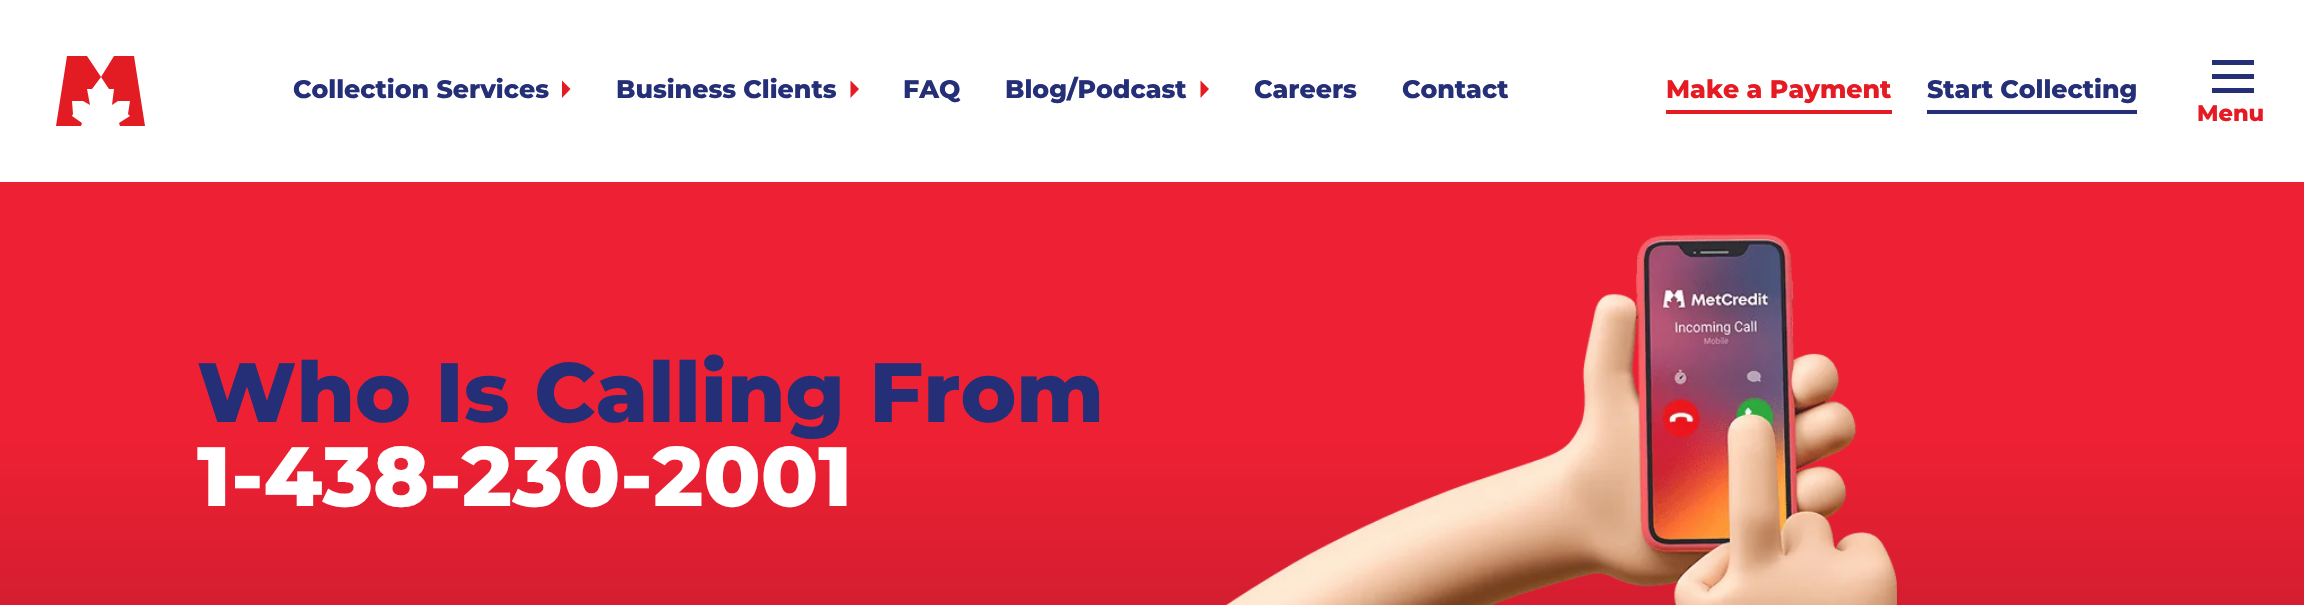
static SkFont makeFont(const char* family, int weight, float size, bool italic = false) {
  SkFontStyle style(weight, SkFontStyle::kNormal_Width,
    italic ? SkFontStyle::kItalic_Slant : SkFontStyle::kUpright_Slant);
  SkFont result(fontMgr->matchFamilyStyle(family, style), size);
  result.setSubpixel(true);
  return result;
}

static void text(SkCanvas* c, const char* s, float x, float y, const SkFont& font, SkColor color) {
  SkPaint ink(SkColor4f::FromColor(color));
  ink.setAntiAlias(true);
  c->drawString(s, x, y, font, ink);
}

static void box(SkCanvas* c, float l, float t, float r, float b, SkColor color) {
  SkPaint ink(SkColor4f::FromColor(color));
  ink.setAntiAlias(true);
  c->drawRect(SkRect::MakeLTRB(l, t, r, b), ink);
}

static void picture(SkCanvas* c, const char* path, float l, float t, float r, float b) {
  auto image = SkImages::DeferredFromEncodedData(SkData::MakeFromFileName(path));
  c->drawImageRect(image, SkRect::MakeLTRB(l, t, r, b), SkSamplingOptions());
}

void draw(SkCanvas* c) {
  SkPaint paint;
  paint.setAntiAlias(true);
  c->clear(0xffffffff);
  paint.setColor(0xffe31b23);
  c->drawPath(SkPathBuilder().moveTo(82, 123).lineTo(72, 116).lineTo(73, 114).lineTo(72, 101).lineTo(83, 101).lineTo(90, 105).lineTo(87, 89).lineTo(92, 89).lineTo(101, 77).lineTo(109, 89).lineTo(114, 89).lineTo(112, 105).lineTo(118, 101).lineTo(130, 101).lineTo(128, 114).lineTo(130, 116).lineTo(119, 123).lineTo(120, 126).lineTo(145, 126).lineTo(134, 56).lineTo(114, 56).lineTo(101, 77).lineTo(87, 56).lineTo(67, 56).lineTo(56, 126).lineTo(81, 126).close().detach(), paint);
  SkFont face1 = makeFont("Montserrat", 800, 25.25f);
  text(c, "Collection Services", 293, 98, face1, 0xff252f77);
  paint.setColor(0xffe51b24);
  c->drawPath(SkPathBuilder().moveTo(562, 98).lineTo(562, 80.5f).lineTo(570.5f, 89).close().detach(), paint);
  text(c, "Business Clients", 616, 98, face1, 0xff252f77);
  c->drawPath(SkPathBuilder().moveTo(850.5f, 98).lineTo(850.5f, 80.5f).lineTo(859, 89).close().detach(), paint);
  text(c, "FAQ", 903, 98, face1, 0xff252f77);
  text(c, "Blog/Podcast", 1005, 98, face1, 0xff252f77);
  c->drawPath(SkPathBuilder().moveTo(1200.5f, 98).lineTo(1200.5f, 80.5f).lineTo(1209, 89).close().detach(), paint);
  text(c, "Careers", 1254, 98, face1, 0xff252f77);
  text(c, "Contact", 1402, 98, face1, 0xff252f77);
  text(c, "Make a Payment", 1666, 98, face1, 0xffe51b24);
  box(c, 1666, 110, 1892, 114, 0xffe51b24);
  text(c, "Start Collecting", 1927, 98, face1, 0xff252f77);
  box(c, 1927, 110, 2137, 114, 0xff252f77);
  box(c, 2212, 88, 2254, 93, 0xff252f77);
  box(c, 2212, 60, 2254, 65, 0xff252f77);
  box(c, 2212, 74, 2254, 79, 0xff252f77);
  SkFont face2 = makeFont("Montserrat", 800, 22.5f);
  text(c, "Menu", 2197, 121, face2, 0xffe51b24);
  {
    const SkColor colors[] = {0xffc61c2f, 0xffee2033};
    const float stops[] = {0, 0.5f};
    const SkPoint ends[] = {{1152, 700}, {1152, 182}};
    paint.setShader(SkGradientShader::MakeLinear(ends, colors, stops, 2, SkTileMode::kClamp));
    paint.setAlpha(255);
  }
  c->drawRect(SkRect::MakeLTRB(0, 182, 2304, 605), paint);
  SkFont face3 = makeFont("Montserrat", 800, 84);
  text(c, "Who Is Calling From", 197, 422, face3, 0xff252f77);
  text(c, "1-438-230-2001", 197, 506, face3, 0xffffffff);
  picture(c, "img_01.png", 1225, 234, 1897, 605);
}
